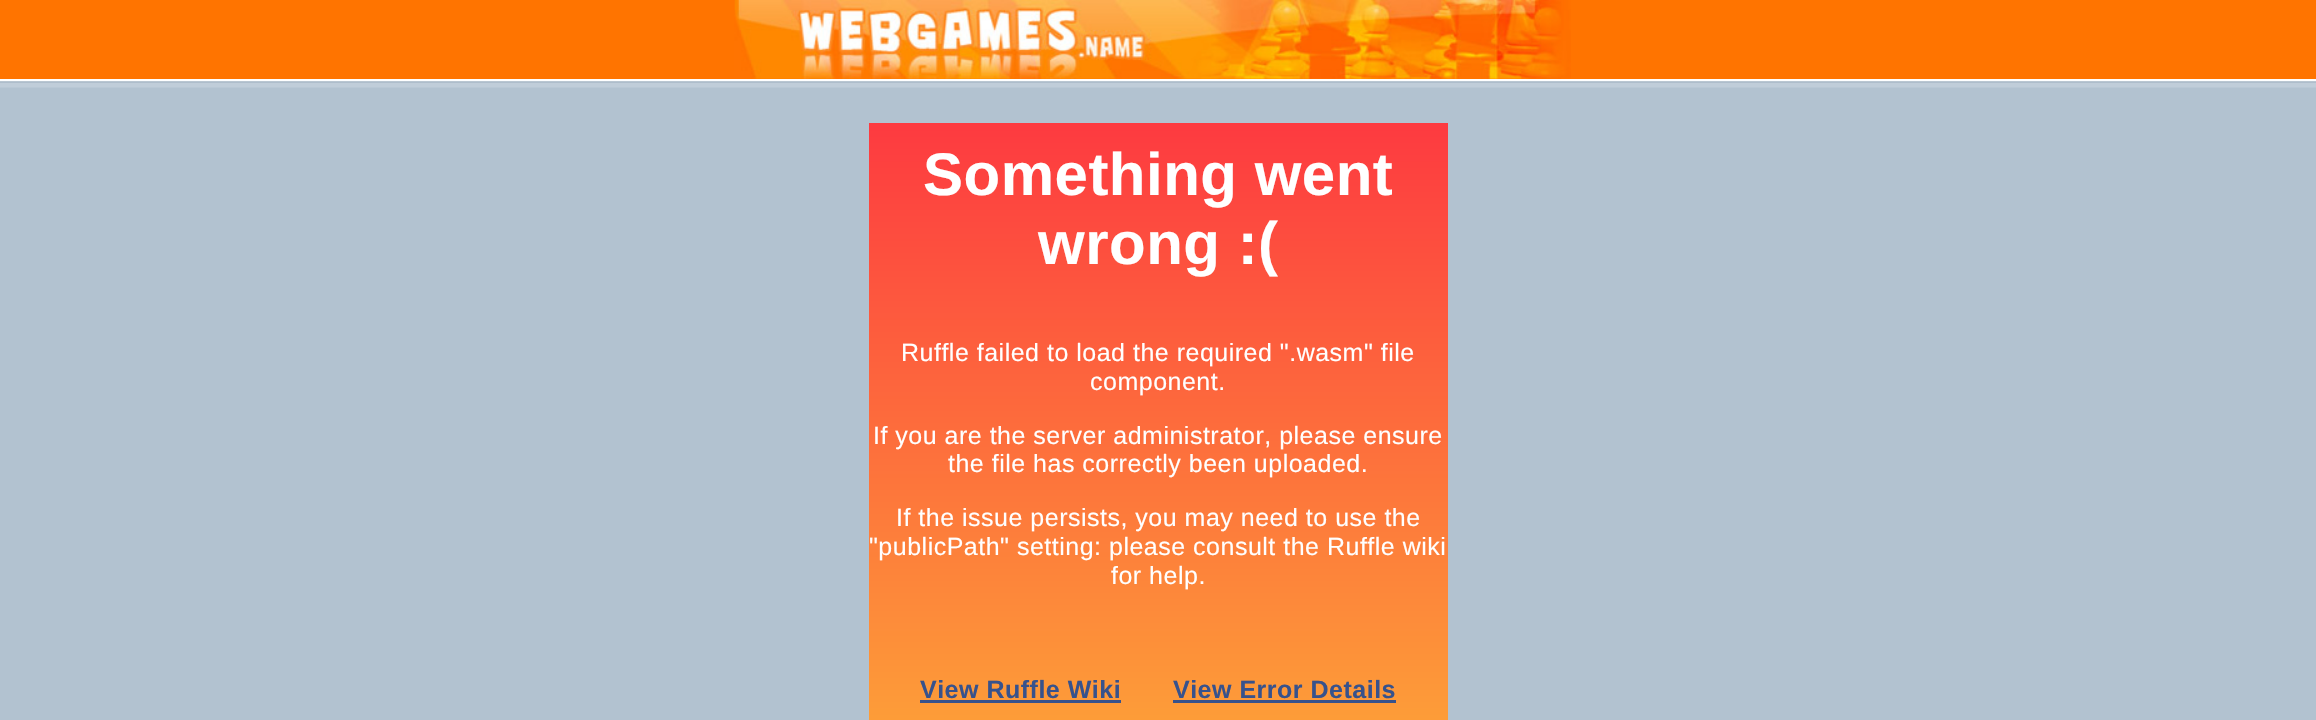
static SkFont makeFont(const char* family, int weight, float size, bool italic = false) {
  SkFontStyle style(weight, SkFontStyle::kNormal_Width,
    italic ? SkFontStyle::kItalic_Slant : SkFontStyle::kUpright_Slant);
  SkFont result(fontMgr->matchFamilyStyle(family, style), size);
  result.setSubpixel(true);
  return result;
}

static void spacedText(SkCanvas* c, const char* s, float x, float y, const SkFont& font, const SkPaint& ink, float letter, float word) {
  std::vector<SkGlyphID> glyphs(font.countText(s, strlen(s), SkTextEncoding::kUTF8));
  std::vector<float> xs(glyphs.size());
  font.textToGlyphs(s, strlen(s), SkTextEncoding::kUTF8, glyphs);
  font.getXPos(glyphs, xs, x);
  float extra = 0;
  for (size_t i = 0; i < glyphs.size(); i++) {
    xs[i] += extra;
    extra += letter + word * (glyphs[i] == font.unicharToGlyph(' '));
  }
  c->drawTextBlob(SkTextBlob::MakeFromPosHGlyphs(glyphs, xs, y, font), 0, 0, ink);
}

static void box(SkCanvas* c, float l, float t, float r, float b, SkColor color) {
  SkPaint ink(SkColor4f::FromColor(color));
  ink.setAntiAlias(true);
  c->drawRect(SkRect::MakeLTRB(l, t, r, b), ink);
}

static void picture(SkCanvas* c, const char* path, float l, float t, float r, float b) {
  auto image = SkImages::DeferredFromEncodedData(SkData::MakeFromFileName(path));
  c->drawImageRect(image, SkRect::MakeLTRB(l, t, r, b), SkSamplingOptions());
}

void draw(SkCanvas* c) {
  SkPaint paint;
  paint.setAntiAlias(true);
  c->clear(0xffb2c2d0);
  picture(c, "img_01.png", 0, 79, 2316, 88);
  box(c, 0, 0, 2316, 79, 0xffff7400);
  picture(c, "img_02.png", 734, 0, 1571, 79);
  {
    const SkColor colors[] = {0xfffd3a40, 0xfffda138};
    const float stops[] = {0, 1};
    const SkPoint ends[] = {{1158, 122}, {1158, 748}};
    paint.setShader(SkGradientShader::MakeLinear(ends, colors, stops, 2, SkTileMode::kClamp));
    paint.setAlpha(255);
  }
  c->drawRect(SkRect::MakeLTRB(869, 123, 1448, 720), paint);
  SkFont face1 = makeFont("Liberation Sans", 700, 60);
  paint.setShader(nullptr);
  paint.setColor(0xffffffff);
  spacedText(c, "Something went", 923, 195, face1, paint, 0.5f, 0);
  spacedText(c, "wrong :(", 1038, 264, face1, paint, 0.5f, 0);
  SkFont face2 = makeFont("Liberation Sans", 400, 25);
  spacedText(c, "Ruffle failed to load the required \".wasm\" file", 901, 361, face2, paint, 0.5f, 0);
  spacedText(c, "component.", 1090, 390, face2, paint, 0.5f, 0);
  spacedText(c, "If you are the server administrator, please ensure", 873, 444, face2, paint, 0.5f, 0);
  spacedText(c, "the file has correctly been uploaded.", 948, 472, face2, paint, 0.5f, 0);
  spacedText(c, "If the issue persists, you may need to use the", 896, 526, face2, paint, 0.5f, 0);
  spacedText(c, "\"publicPath\" setting: please consult the Ruffle wiki", 869, 555, face2, paint, 0.5f, 0);
  spacedText(c, "for help.", 1111, 584, face2, paint, 0.5f, 0);
  SkFont face3 = makeFont("Liberation Sans", 700, 25);
  paint.setColor(0xff37528c);
  spacedText(c, "View Ruffle Wiki", 920, 698, face3, paint, 0.5f, 0);
  box(c, 920, 700, 1121, 703, 0xff37528c);
  spacedText(c, "View Error Details", 1173, 698, face3, paint, 0.5f, 0);
  box(c, 1173, 700, 1396, 703, 0xff37528c);
}
